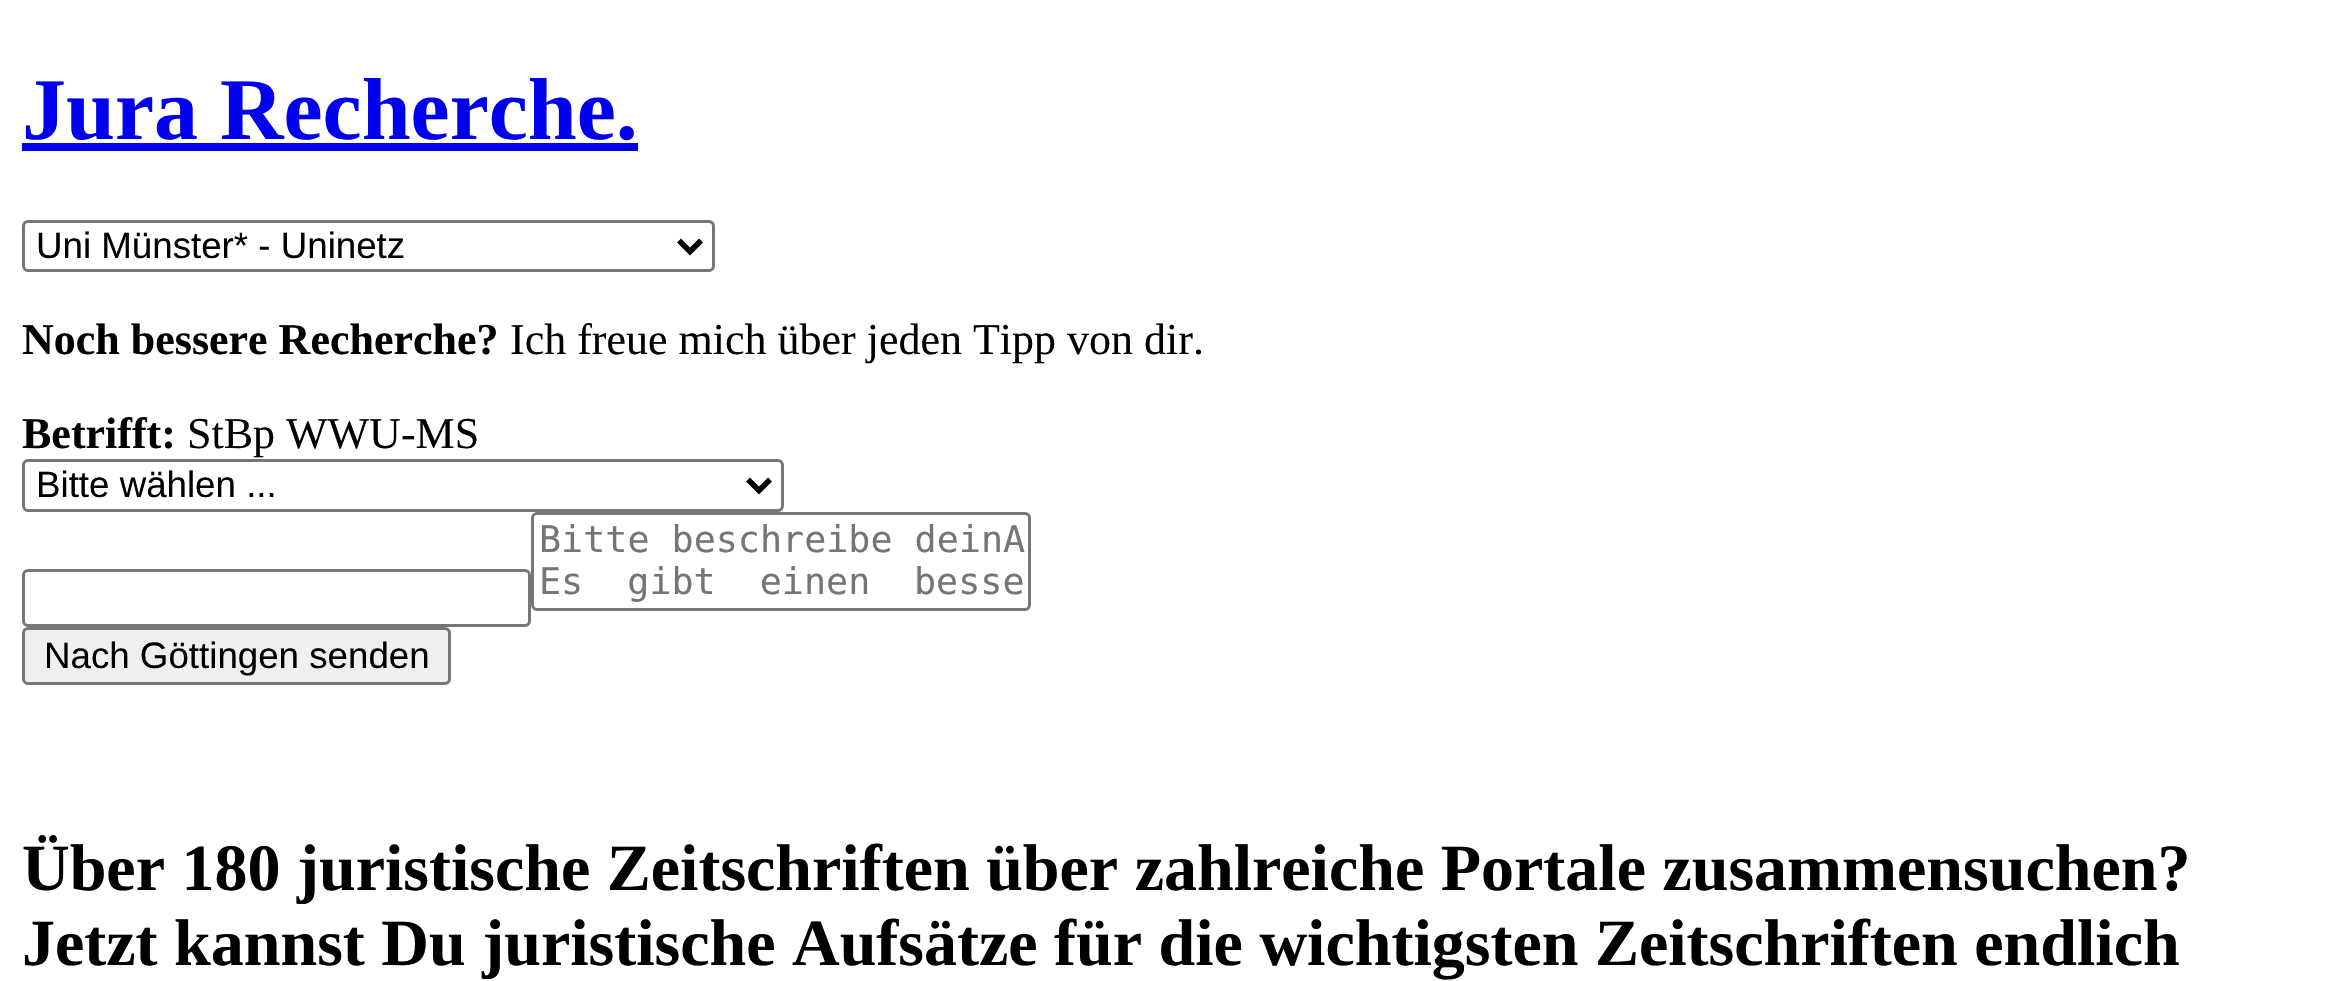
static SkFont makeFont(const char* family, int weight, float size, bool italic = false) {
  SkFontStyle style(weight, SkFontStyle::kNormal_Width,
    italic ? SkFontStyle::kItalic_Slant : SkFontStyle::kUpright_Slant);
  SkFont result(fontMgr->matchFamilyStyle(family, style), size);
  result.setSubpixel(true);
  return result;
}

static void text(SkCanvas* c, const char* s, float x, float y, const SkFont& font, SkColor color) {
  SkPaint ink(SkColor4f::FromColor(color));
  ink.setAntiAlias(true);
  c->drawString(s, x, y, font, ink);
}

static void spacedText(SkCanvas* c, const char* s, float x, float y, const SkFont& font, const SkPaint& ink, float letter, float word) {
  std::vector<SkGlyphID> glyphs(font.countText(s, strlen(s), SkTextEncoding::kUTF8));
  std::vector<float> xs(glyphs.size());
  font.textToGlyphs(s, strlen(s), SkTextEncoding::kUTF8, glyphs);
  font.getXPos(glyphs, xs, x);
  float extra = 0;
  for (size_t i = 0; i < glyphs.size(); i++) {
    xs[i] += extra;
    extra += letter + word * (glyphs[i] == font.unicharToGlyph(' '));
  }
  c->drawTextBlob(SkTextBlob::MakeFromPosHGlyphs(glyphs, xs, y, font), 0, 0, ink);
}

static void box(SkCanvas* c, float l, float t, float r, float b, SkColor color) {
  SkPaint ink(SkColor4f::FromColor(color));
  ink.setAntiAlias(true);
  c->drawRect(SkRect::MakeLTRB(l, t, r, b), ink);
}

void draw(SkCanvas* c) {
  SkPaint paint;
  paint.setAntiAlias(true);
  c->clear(0xffffffff);
  SkFont face1 = makeFont("Liberation Serif", 700, 88);
  text(c, "Jura Recherche.", 22, 139, face1, 0xff0000ee);
  box(c, 22, 143, 638, 151, 0xff0000ee);
  paint.setStyle(SkPaint::kStroke_Style);
  paint.setStrokeWidth(3);
  paint.setColor(0xff767676);
  c->drawRoundRect(SkRect::MakeLTRB(23.5f, 221.5f, 713.5f, 270.5f), 4.5f, 4.5f, paint);
  paint.setStrokeWidth(5.5f);
  paint.setColor(0xff000000);
  c->drawPath(SkPathBuilder().moveTo(679, 240.5f).lineTo(690, 251.5f).lineTo(701, 240.5f).detach(), paint);
  SkFont face2 = makeFont("Liberation Sans", 400, 36.7f);
  text(c, "Uni Münster* - Uninetz", 36, 258, face2, 0xff000000);
  SkFont face3 = makeFont("Liberation Serif", 700, 44);
  text(c, "Noch bessere Recherche?", 22, 354, face3, 0xff000000);
  SkFont face4 = makeFont("Liberation Serif", 400, 44);
  text(c, "Ich freue mich über jeden Tipp von dir.", 510, 354, face4, 0xff000000);
  text(c, "Betrifft:", 22, 448, face3, 0xff000000);
  text(c, "StBp WWU-MS", 187, 448, face4, 0xff000000);
  paint.setStrokeWidth(3);
  paint.setColor(0xff767676);
  c->drawRoundRect(SkRect::MakeLTRB(23.5f, 460.5f, 782.5f, 510.5f), 4.5f, 4.5f, paint);
  paint.setStrokeWidth(5.5f);
  paint.setColor(0xff000000);
  c->drawPath(SkPathBuilder().moveTo(748, 479.5f).lineTo(759, 490.5f).lineTo(770, 479.5f).detach(), paint);
  text(c, "Bitte wählen ...", 36, 497, face2, 0xff000000);
  paint.setStrokeWidth(3);
  paint.setColor(0xff767676);
  c->drawRoundRect(SkRect::MakeLTRB(23.5f, 570.5f, 529.5f, 625.5f), 4.5f, 4.5f, paint);
  c->drawRoundRect(SkRect::MakeLTRB(532.5f, 513.5f, 1029.5f, 609.5f), 4.5f, 4.5f, paint);
  SkFont face5 = makeFont("DejaVu Sans Mono", 400, 36.7f);
  text(c, "Bitte beschreibe deinA", 539, 552, face5, 0xff757575);
  paint.setStyle(SkPaint::kFill_Style);
  paint.setColor(0xff757575);
  spacedText(c, "Es gibt einen", 539, 594, face5, paint, 0, 22);
  text(c, "besse", 914, 594, face5, 0xff757575);
  paint.setColor(0xffefefef);
  c->drawRoundRect(SkRect::MakeLTRB(23.5f, 628.5f, 449.5f, 683.5f), 4.5f, 4.5f, paint);
  paint.setStyle(SkPaint::kStroke_Style);
  paint.setColor(0xff767676);
  c->drawRoundRect(SkRect::MakeLTRB(23.5f, 628.5f, 449.5f, 683.5f), 4.5f, 4.5f, paint);
  text(c, "Nach Göttingen senden", 44, 668, face2, 0xff000000);
  SkFont face6 = makeFont("Liberation Serif", 700, 66);
  text(c, "Über 180 juristische Zeitschriften über zahlreiche Portale zusammensuchen?", 22, 890, face6, 0xff000000);
  text(c, "Jetzt kannst Du juristische Aufsätze für die wichtigsten Zeitschriften endlich", 22, 965, face6, 0xff000000);
}
